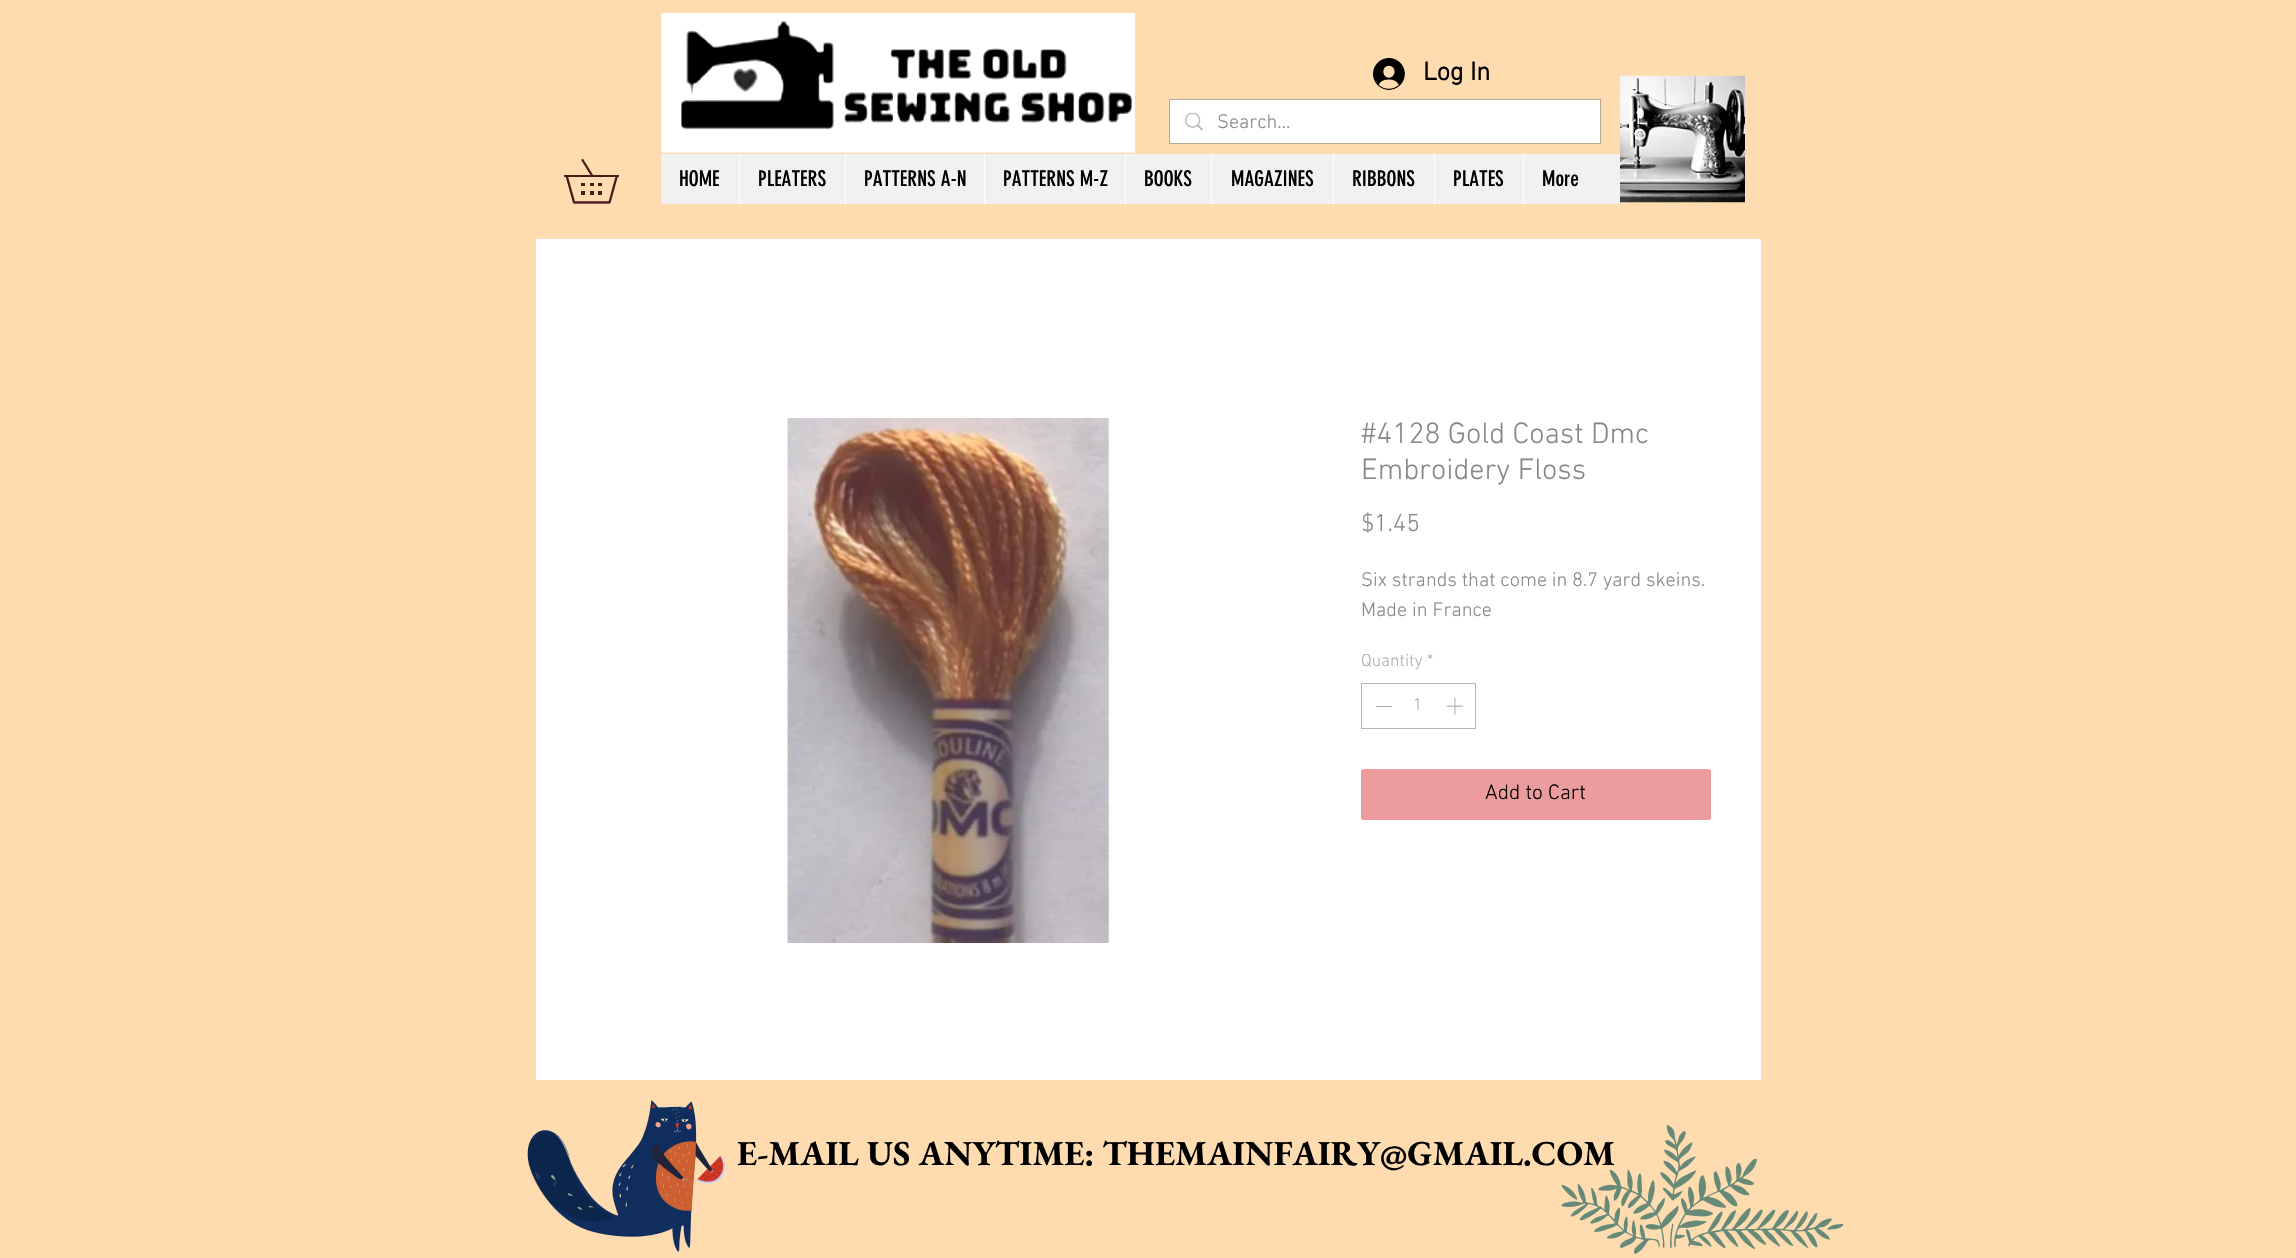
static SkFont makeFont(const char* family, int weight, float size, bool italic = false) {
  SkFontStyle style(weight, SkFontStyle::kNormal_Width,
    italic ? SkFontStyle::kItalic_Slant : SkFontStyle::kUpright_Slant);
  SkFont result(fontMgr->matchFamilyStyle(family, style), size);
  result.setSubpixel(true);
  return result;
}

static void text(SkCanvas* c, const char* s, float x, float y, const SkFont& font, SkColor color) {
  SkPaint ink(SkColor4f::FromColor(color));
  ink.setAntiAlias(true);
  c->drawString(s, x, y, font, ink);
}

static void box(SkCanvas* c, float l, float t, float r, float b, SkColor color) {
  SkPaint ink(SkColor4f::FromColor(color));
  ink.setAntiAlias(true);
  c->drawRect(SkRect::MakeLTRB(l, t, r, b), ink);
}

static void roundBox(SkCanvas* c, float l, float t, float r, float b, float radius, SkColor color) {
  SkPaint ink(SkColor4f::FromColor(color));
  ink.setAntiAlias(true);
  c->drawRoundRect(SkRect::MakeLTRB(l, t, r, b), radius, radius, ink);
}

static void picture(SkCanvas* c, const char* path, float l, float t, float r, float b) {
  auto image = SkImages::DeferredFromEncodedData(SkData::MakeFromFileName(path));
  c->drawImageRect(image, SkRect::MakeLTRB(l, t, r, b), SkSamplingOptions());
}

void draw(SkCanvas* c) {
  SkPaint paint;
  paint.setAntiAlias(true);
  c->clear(0xffffdcaf);
  picture(c, "img_01.png", 661, 12, 1135, 153);
  paint.setStyle(SkPaint::kStroke_Style);
  paint.setStrokeWidth(1);
  paint.setColor(0xffb8a996);
  c->drawRect(SkRect::MakeLTRB(1169.5f, 99.5f, 1600.5f, 143.5f), paint);
  box(c, 1170, 100, 1600, 143, 0xffffffff);
  picture(c, "img_02.png", 1185, 113, 1203, 130);
  SkFont face1 = makeFont("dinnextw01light", 300, 20);
  text(c, "Search...", 1217, 128, face1, 0xff888785);
  picture(c, "img_03.png", 1373, 58, 1405, 90);
  SkFont face2 = makeFont("dinnextw01light", 700, 26);
  text(c, "Log In", 1423, 80, face2, 0xff000000);
  picture(c, "img_04.png", 1620, 75, 1745, 203);
  picture(c, "img_05.png", 564, 158, 619, 204);
  box(c, 661, 154, 1620, 204, 0xfff1f1f1);
  SkFont face3 = makeFont("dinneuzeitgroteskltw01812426", 400, 21.25f);
  text(c, "HOME", 679, 186, face3, 0xff000000);
  box(c, 739, 154, 740, 204, 0xffffffff);
  text(c, "PLEATERS", 758, 186, face3, 0xff000000);
  box(c, 845, 154, 846, 204, 0xffffffff);
  text(c, "PATTERNS A-N", 864, 186, face3, 0xff000000);
  box(c, 984, 154, 985, 204, 0xffffffff);
  text(c, "PATTERNS M-Z", 1003, 186, face3, 0xff000000);
  box(c, 1125, 154, 1126, 204, 0xffffffff);
  text(c, "BOOKS", 1144, 186, face3, 0xff000000);
  box(c, 1211, 154, 1212, 204, 0xffffffff);
  text(c, "MAGAZINES", 1231, 186, face3, 0xff000000);
  box(c, 1333, 154, 1334, 204, 0xffffffff);
  text(c, "RIBBONS", 1352, 186, face3, 0xff000000);
  box(c, 1434, 154, 1435, 204, 0xffffffff);
  text(c, "PLATES", 1453, 186, face3, 0xff000000);
  box(c, 1523, 154, 1524, 204, 0xffffffff);
  text(c, "More", 1542, 186, face3, 0xff000000);
  box(c, 536, 239, 1761, 1080, 0xffffffff);
  picture(c, "img_06.png", 787, 418, 1109, 943);
  SkFont face4 = makeFont("dinnextw01light", 300, 30);
  text(c, "#4128 Gold Coast Dmc", 1361, 443, face4, 0xff888785);
  text(c, "Embroidery Floss", 1361, 479, face4, 0xff888785);
  SkFont face5 = makeFont("dinnextw01light", 300, 25);
  text(c, "$1.45", 1361, 531, face5, 0xff888785);
  text(c, "Six strands that come in 8.7 yard skeins.", 1361, 586, face1, 0xff888785);
  text(c, "Made in France", 1361, 616, face1, 0xff888785);
  SkFont face6 = makeFont("dinnextw01light", 300, 17.5f);
  text(c, "Quantity", 1361, 666, face6, 0xffb3ada9);
  text(c, "*", 1427, 666, face6, 0xffb3ada9);
  paint.setColor(0xffb8b7b6);
  c->drawRect(SkRect::MakeLTRB(1361.5f, 683.5f, 1475.5f, 728.5f), paint);
  box(c, 1376, 706, 1392, 707, 0xffb3ada9);
  text(c, "1", 1413, 710, face6, 0xffb3ada9);
  picture(c, "img_07.png", 1446, 698, 1464, 715);
  roundBox(c, 1361, 769, 1711, 820, 2.5f, 0xffec9c9c);
  SkFont face7 = makeFont("dinnextw01light", 300, 21.25f);
  text(c, "Add to Cart", 1485, 799, face7, 0xff000000);
  picture(c, "img_08.png", 527, 1100, 725, 1254);
  SkFont face8 = makeFont("EB Garamond", 700, 35);
  text(c, "E-MAIL US ANYTIME: THEMAINFAIRY@GMAIL.COM", 737, 1165, face8, 0xff000000);
  picture(c, "img_09.png", 1561, 1125, 1844, 1254);
}
